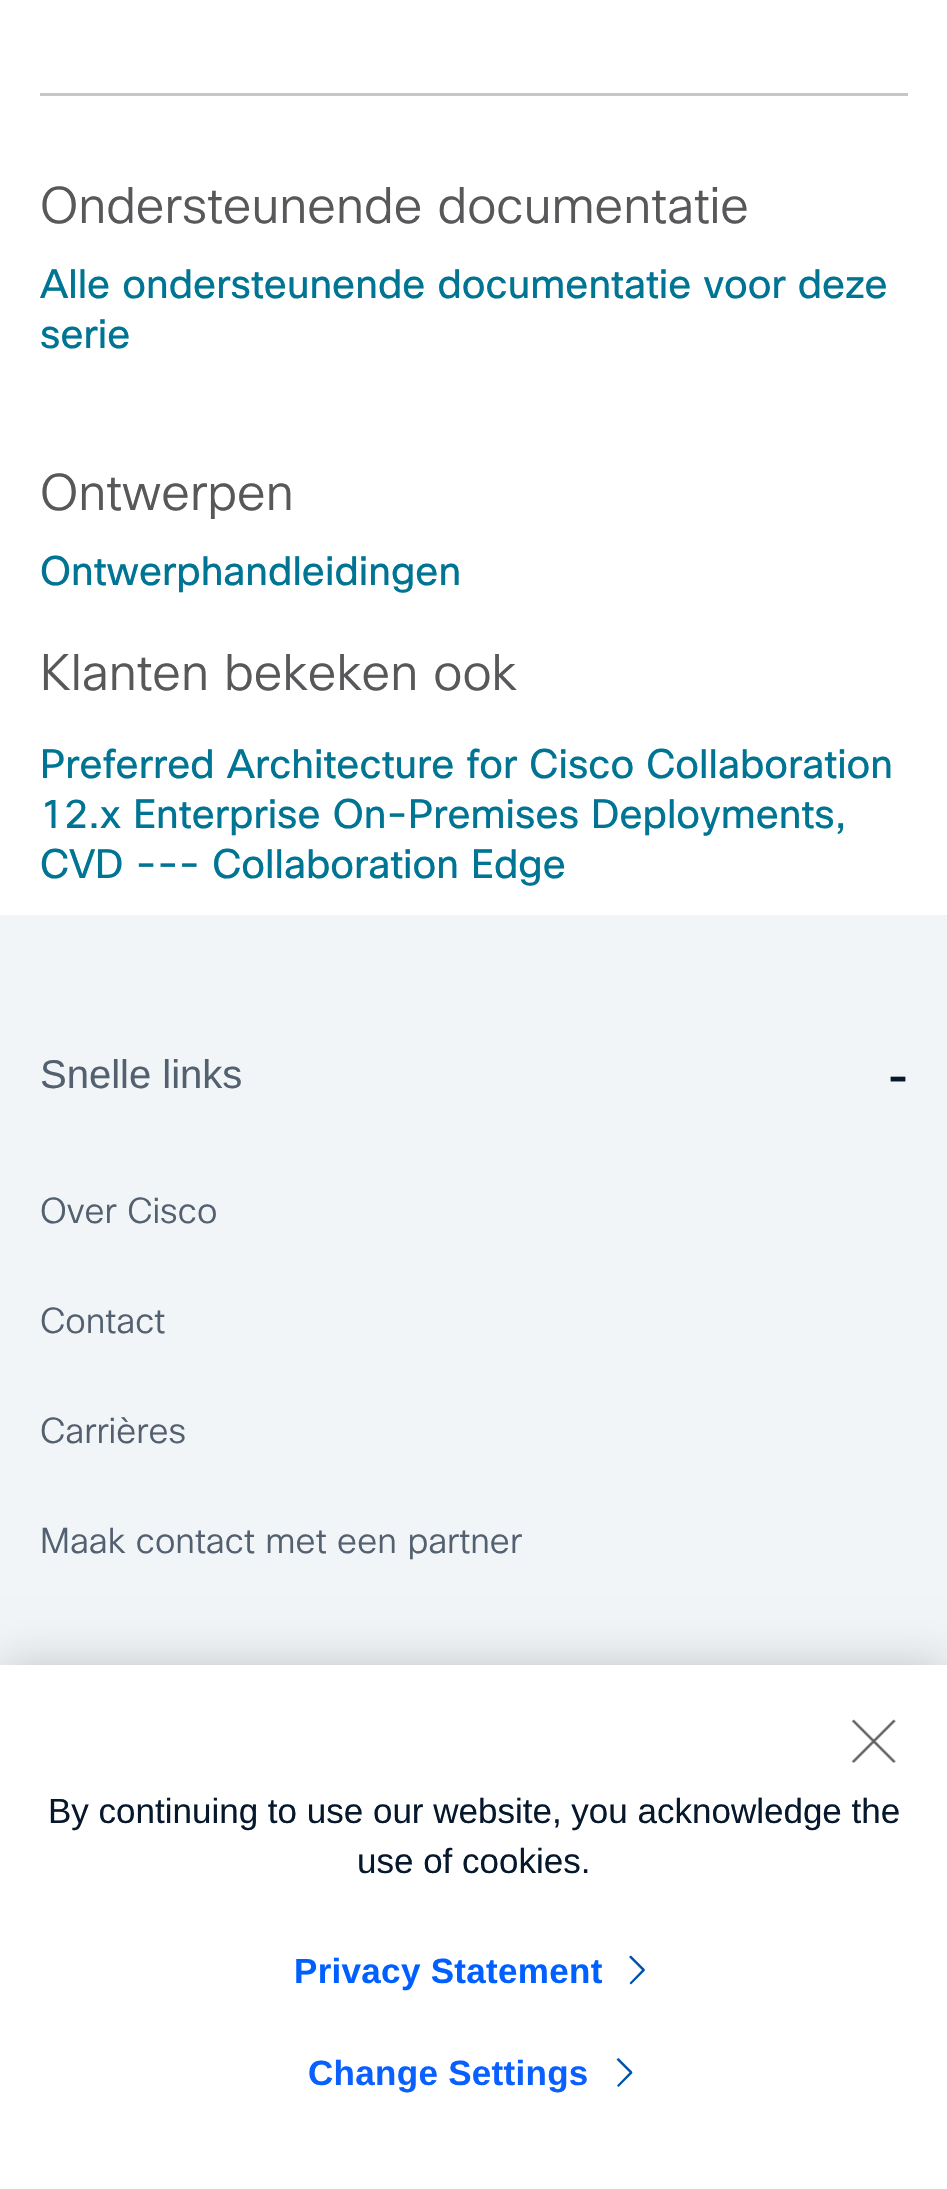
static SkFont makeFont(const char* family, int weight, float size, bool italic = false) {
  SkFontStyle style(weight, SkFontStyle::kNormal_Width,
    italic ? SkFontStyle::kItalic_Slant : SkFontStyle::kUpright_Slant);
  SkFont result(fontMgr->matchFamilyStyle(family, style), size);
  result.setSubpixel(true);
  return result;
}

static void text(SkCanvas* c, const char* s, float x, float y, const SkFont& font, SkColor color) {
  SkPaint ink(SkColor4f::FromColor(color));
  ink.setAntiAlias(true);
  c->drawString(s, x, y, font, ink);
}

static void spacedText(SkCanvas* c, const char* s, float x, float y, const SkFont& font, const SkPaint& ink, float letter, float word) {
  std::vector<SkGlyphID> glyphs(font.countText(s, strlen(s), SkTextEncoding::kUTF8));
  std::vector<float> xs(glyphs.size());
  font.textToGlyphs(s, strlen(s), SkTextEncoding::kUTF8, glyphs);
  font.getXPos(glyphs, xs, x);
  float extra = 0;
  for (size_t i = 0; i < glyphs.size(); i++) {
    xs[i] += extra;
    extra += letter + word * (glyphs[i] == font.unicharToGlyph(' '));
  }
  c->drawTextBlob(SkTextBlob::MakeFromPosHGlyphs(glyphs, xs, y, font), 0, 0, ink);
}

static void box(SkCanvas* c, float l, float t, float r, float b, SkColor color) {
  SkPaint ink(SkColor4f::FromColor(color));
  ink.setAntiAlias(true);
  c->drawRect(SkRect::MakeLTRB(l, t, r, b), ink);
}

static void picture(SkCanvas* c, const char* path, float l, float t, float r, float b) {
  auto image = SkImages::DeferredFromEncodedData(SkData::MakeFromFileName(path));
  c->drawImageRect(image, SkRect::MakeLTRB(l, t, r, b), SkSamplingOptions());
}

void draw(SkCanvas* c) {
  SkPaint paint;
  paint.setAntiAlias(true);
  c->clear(0xffffffff);
  box(c, 40, 93, 908, 96, 0xffc6c7ca);
  SkFont face1 = makeFont("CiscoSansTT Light", 300, 50);
  text(c, "Ondersteunende documentatie", 40, 223, face1, 0xff58585b);
  SkFont face2 = makeFont("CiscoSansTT", 400, 40);
  text(c, "Alle ondersteunende documentatie voor deze", 40, 298, face2, 0xff007493);
  text(c, "serie", 40, 348, face2, 0xff007493);
  text(c, "Ontwerpen", 40, 510, face1, 0xff58585b);
  text(c, "Ontwerphandleidingen", 40, 585, face2, 0xff007493);
  text(c, "Klanten bekeken ook", 40, 690, face1, 0xff58585b);
  text(c, "Preferred Architecture for Cisco Collaboration", 40, 778, face2, 0xff007493);
  text(c, "12.x Enterprise On-Premises Deployments,", 40, 828, face2, 0xff007493);
  text(c, "CVD --- Collaboration Edge", 40, 878, face2, 0xff007493);
  box(c, 0, 915, 947, 1665, 0xfff2f5f7);
  SkFont face3 = makeFont("Liberation Sans", 400, 40);
  text(c, "Snelle links", 40, 1088, face3, 0xff536070);
  SkFont face4 = makeFont("Liberation Sans", 400, 60);
  text(c, "-", 888, 1095, face4, 0xff07182d);
  SkFont face5 = makeFont("CiscoSansTT Light", 300, 35);
  text(c, "Over Cisco", 40, 1223, face5, 0xff536070);
  text(c, "Contact", 40, 1333, face5, 0xff536070);
  text(c, "Carrières", 40, 1443, face5, 0xff536070);
  text(c, "Maak contact met een partner", 40, 1553, face5, 0xff536070);
  paint.setColor(0x33000000);
  paint.setMaskFilter(SkMaskFilter::MakeBlur(kNormal_SkBlurStyle, 22.5f));
  c->drawRect(SkRect::MakeLTRB(0, 1665, 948, 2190), paint);
  paint.setMaskFilter(nullptr);
  box(c, 0, 1665, 947, 2189, 0xffffffff);
  picture(c, "img_01.png", 851, 1719, 896, 1763);
  SkFont face6 = makeFont("Liberation Sans", 400, 35);
  text(c, "By continuing to use our website, you acknowledge the", 48, 1823, face6, 0xff07182d);
  text(c, "use of cookies.", 357, 1873, face6, 0xff07182d);
  SkFont face7 = makeFont("Liberation Sans", 700, 35);
  paint.setColor(0xff0060ff);
  spacedText(c, "Privacy Statement", 294, 1983, face7, paint, 0.3f, 0);
  paint.setColor(0xff0051af);
  c->drawPath(SkPathBuilder().moveTo(631, 1984.5f).lineTo(629.5f, 1983).lineTo(642, 1970).lineTo(629, 1957).lineTo(631, 1955.5f).lineTo(642.5f, 1967).cubicTo(643, 1967.5f, 646, 1969.5f, 644.5f, 1971).close().detach(), paint);
  paint.setColor(0xff0a60ff);
  spacedText(c, "Change Settings", 308, 2085, face7, paint, 0.3f, 0);
  paint.setColor(0xff0051af);
  c->drawPath(SkPathBuilder().moveTo(618.5f, 2087).lineTo(617, 2085.5f).lineTo(629.5f, 2072.5f).lineTo(616.5f, 2059.5f).lineTo(618.5f, 2058).lineTo(630, 2069.5f).cubicTo(630.5f, 2070, 633.5f, 2072, 632, 2073.5f).close().detach(), paint);
}
